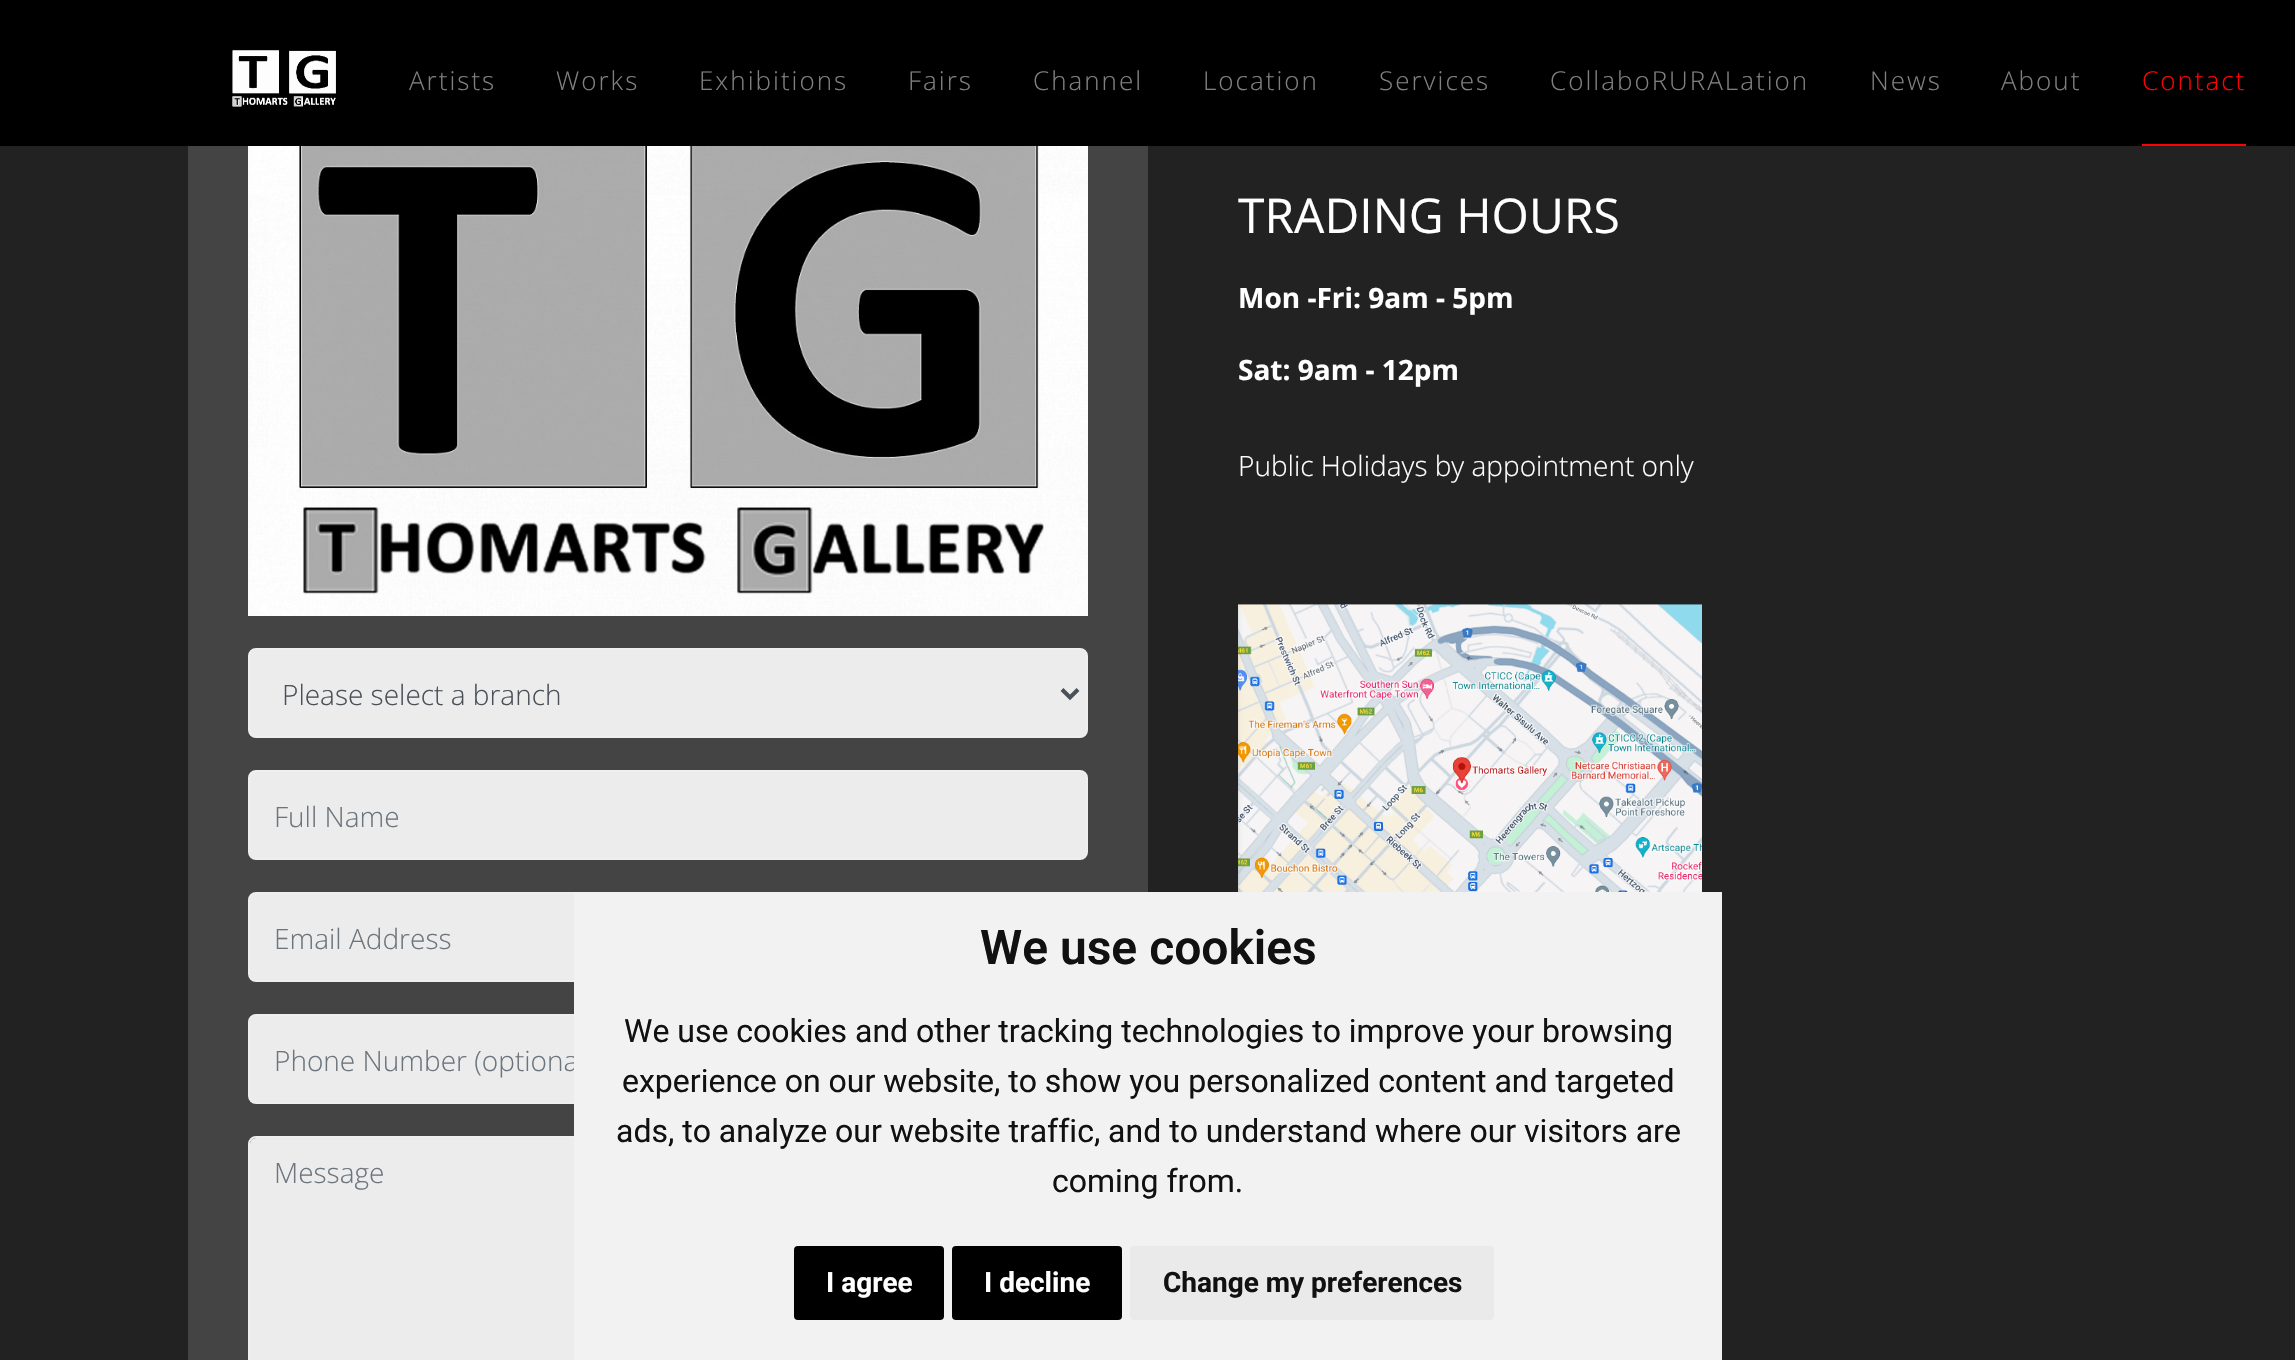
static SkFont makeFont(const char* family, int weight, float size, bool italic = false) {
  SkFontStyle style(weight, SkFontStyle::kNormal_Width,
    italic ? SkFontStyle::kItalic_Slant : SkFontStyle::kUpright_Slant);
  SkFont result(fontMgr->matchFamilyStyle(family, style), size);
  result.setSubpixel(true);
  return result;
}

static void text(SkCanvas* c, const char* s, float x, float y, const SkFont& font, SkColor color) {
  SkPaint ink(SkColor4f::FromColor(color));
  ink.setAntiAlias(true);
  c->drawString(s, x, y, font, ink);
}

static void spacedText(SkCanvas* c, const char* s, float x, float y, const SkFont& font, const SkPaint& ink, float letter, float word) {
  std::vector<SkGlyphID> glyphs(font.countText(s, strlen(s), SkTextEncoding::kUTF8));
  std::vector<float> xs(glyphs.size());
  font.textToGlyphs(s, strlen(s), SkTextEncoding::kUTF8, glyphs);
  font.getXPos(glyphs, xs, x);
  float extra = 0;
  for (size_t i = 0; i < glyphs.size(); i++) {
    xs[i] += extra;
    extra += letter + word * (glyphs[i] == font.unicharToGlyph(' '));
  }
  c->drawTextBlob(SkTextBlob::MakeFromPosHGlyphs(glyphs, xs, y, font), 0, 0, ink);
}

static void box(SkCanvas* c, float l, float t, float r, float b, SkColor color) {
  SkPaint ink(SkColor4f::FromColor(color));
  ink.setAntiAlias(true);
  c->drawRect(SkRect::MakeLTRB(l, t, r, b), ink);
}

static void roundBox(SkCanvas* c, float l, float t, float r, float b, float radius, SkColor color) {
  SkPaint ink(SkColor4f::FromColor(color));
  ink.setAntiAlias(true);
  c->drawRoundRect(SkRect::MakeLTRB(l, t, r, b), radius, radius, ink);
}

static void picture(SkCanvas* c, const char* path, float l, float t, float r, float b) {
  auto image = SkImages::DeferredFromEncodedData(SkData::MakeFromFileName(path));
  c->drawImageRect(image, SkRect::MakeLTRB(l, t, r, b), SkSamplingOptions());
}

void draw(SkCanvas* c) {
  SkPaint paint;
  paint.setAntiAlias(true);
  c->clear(0xff222222);
  box(c, 0, 0, 2295, 146, 0xff000000);
  picture(c, "img_01.png", 232, 50, 336, 107);
  SkFont face1 = makeFont("Open Sans", 300, 26);
  paint.setColor(0xff808080);
  spacedText(c, "Artists", 409, 90, face1, paint, 2, 0);
  spacedText(c, "Works", 556, 90, face1, paint, 2, 0);
  spacedText(c, "Exhibitions", 699, 90, face1, paint, 2, 0);
  spacedText(c, "Fairs", 908, 90, face1, paint, 2, 0);
  spacedText(c, "Channel", 1033, 90, face1, paint, 2, 0);
  spacedText(c, "Location", 1203, 90, face1, paint, 2, 0);
  spacedText(c, "Services", 1379, 90, face1, paint, 2, 0);
  spacedText(c, "CollaboRURALation", 1550, 90, face1, paint, 2, 0);
  spacedText(c, "News", 1870, 90, face1, paint, 2, 0);
  spacedText(c, "About", 2001, 90, face1, paint, 2, 0);
  box(c, 2142, 144, 2246, 146, 0xfffd0202);
  paint.setColor(0xfffd0202);
  spacedText(c, "Contact", 2142, 90, face1, paint, 2, 0);
  SkFont face2 = makeFont("Open Sans", 400, 48);
  text(c, "TRADING HOURS", 1238, 233, face2, 0xffffffff);
  SkFont face3 = makeFont("Open Sans", 700, 28);
  text(c, "Mon -Fri: 9am - 5pm", 1238, 308, face3, 0xffffffff);
  text(c, "Sat: 9am - 12pm", 1238, 380, face3, 0xffffffff);
  SkFont face4 = makeFont("Open Sans", 300, 28);
  text(c, "Public Holidays by appointment only", 1238, 476, face4, 0xffffffff);
  picture(c, "img_02.png", 1238, 604, 1702, 892);
  box(c, 188, 146, 1148, 1360, 0xff444444);
  picture(c, "img_03.png", 248, 146, 1088, 616);
  paint.setColor(0xffececec);
  c->drawRoundRect(SkRect::MakeLTRB(249, 649, 1087, 737), 7, 7, paint);
  paint.setStyle(SkPaint::kStroke_Style);
  paint.setStrokeWidth(2);
  paint.setColor(0xffefefef);
  c->drawRoundRect(SkRect::MakeLTRB(249, 649, 1087, 737), 7, 7, paint);
  paint.setStrokeWidth(4);
  paint.setColor(0xff495057);
  c->drawPath(SkPathBuilder().moveTo(1062, 689.5f).lineTo(1070, 697.5f).lineTo(1078, 689.5f).detach(), paint);
  text(c, "Please select a branch", 282, 705, face4, 0xff495057);
  paint.setStyle(SkPaint::kFill_Style);
  paint.setColor(0xffececec);
  c->drawRoundRect(SkRect::MakeLTRB(249, 771, 1087, 859), 7, 7, paint);
  paint.setStyle(SkPaint::kStroke_Style);
  paint.setStrokeWidth(2);
  paint.setColor(0xffefefef);
  c->drawRoundRect(SkRect::MakeLTRB(249, 771, 1087, 859), 7, 7, paint);
  text(c, "Full Name", 274, 827, face4, 0xff6c757d);
  paint.setStyle(SkPaint::kFill_Style);
  paint.setColor(0xffececec);
  c->drawRoundRect(SkRect::MakeLTRB(249, 893, 1087, 981), 7, 7, paint);
  paint.setStyle(SkPaint::kStroke_Style);
  paint.setColor(0xffefefef);
  c->drawRoundRect(SkRect::MakeLTRB(249, 893, 1087, 981), 7, 7, paint);
  text(c, "Email Address", 274, 949, face4, 0xff6c757d);
  paint.setStyle(SkPaint::kFill_Style);
  paint.setColor(0xffececec);
  c->drawRoundRect(SkRect::MakeLTRB(249, 1015, 1087, 1103), 7, 7, paint);
  paint.setStyle(SkPaint::kStroke_Style);
  paint.setColor(0xffefefef);
  c->drawRoundRect(SkRect::MakeLTRB(249, 1015, 1087, 1103), 7, 7, paint);
  text(c, "Phone Number (optiona", 274, 1071, face4, 0xff6c757d);
  roundBox(c, 250, 1138, 1086, 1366, 6, 0xffececec);
  c->drawRoundRect(SkRect::MakeLTRB(249, 1137, 1087, 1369), 7, 7, paint);
  text(c, "Message", 274, 1183, face4, 0xff6c757d);
  box(c, 574, 892, 1722, 1360, 0xfff2f2f2);
  SkFont face5 = makeFont("Roboto", 600, 48);
  text(c, "We use cookies", 980, 964, face5, 0xff111111);
  SkFont face6 = makeFont("Roboto", 400, 32);
  text(c, "We use cookies and other tracking technologies to improve your browsing", 624, 1042, face6, 0xff111111);
  text(c, "experience on our website, to show you personalized content and targeted", 622, 1092, face6, 0xff111111);
  text(c, "ads, to analyze our website traffic, and to understand where our visitors are", 616, 1142, face6, 0xff111111);
  text(c, "coming from.", 1052, 1192, face6, 0xff111111);
  roundBox(c, 794, 1246, 944, 1320, 4, 0xff000000);
  SkFont face7 = makeFont("Roboto", 700, 28);
  text(c, "I agree", 826, 1292, face7, 0xffffffff);
  roundBox(c, 952, 1246, 1122, 1320, 4, 0xff000000);
  text(c, "I decline", 984, 1292, face7, 0xffffffff);
  roundBox(c, 1130, 1246, 1494, 1320, 4, 0xffeaeaea);
  text(c, "Change my preferences", 1163, 1292, face7, 0xff111111);
}
